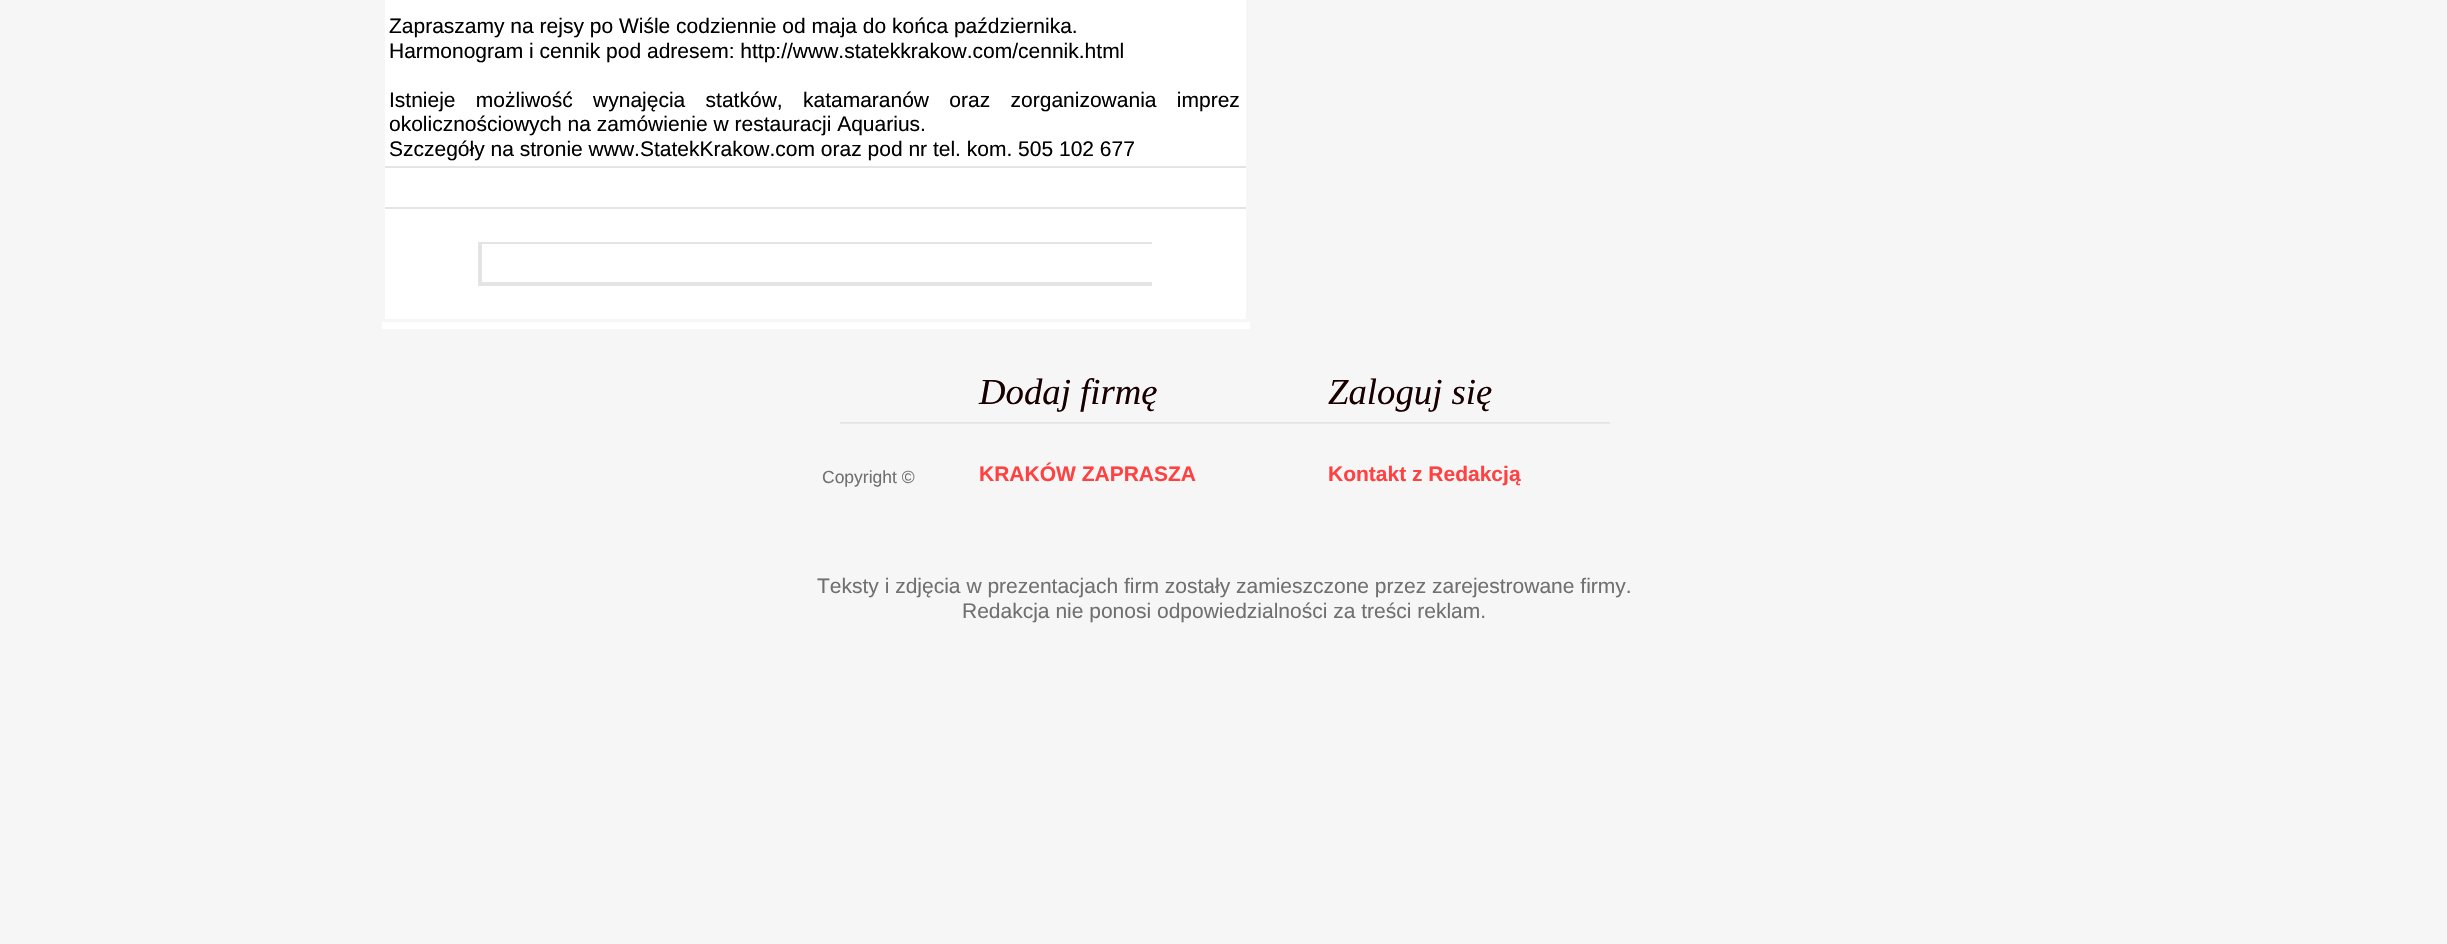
static SkFont makeFont(const char* family, int weight, float size, bool italic = false) {
  SkFontStyle style(weight, SkFontStyle::kNormal_Width,
    italic ? SkFontStyle::kItalic_Slant : SkFontStyle::kUpright_Slant);
  SkFont result(fontMgr->matchFamilyStyle(family, style), size);
  result.setSubpixel(true);
  return result;
}

static void text(SkCanvas* c, const char* s, float x, float y, const SkFont& font, SkColor color) {
  SkPaint ink(SkColor4f::FromColor(color));
  ink.setAntiAlias(true);
  c->drawString(s, x, y, font, ink);
}

static void spacedText(SkCanvas* c, const char* s, float x, float y, const SkFont& font, const SkPaint& ink, float letter, float word) {
  std::vector<SkGlyphID> glyphs(font.countText(s, strlen(s), SkTextEncoding::kUTF8));
  std::vector<float> xs(glyphs.size());
  font.textToGlyphs(s, strlen(s), SkTextEncoding::kUTF8, glyphs);
  font.getXPos(glyphs, xs, x);
  float extra = 0;
  for (size_t i = 0; i < glyphs.size(); i++) {
    xs[i] += extra;
    extra += letter + word * (glyphs[i] == font.unicharToGlyph(' '));
  }
  c->drawTextBlob(SkTextBlob::MakeFromPosHGlyphs(glyphs, xs, y, font), 0, 0, ink);
}

static void box(SkCanvas* c, float l, float t, float r, float b, SkColor color) {
  SkPaint ink(SkColor4f::FromColor(color));
  ink.setAntiAlias(true);
  c->drawRect(SkRect::MakeLTRB(l, t, r, b), ink);
}

static void picture(SkCanvas* c, const char* path, float l, float t, float r, float b) {
  auto image = SkImages::DeferredFromEncodedData(SkData::MakeFromFileName(path));
  c->drawImageRect(image, SkRect::MakeLTRB(l, t, r, b), SkSamplingOptions());
}

void draw(SkCanvas* c) {
  SkPaint paint;
  paint.setAntiAlias(true);
  c->clear(0xfff6f6f6);
  box(c, 385, 0, 1246, 166, 0xffffffff);
  SkFont face1 = makeFont("Liberation Sans", 400, 21);
  text(c, "Zapraszamy na rejsy po Wiśle codziennie od maja do końca października.", 389, 33, face1, 0xff000000);
  text(c, "Harmonogram i cennik pod adresem: http://www.statekkrakow.com/cennik.html", 389, 58, face1, 0xff000000);
  paint.setColor(0xff000000);
  spacedText(c, "Istnieje możliwość wynajęcia statków, katamaranów oraz zorganizowania imprez", 389, 107, face1, paint, 0, 14.5f);
  text(c, "okolicznościowych na zamówienie w restauracji Aquarius.", 389, 131, face1, 0xff000000);
  text(c, "Szczegóły na stronie www.StatekKrakow.com oraz pod nr tel. kom. 505 102 677", 389, 156, face1, 0xff000000);
  box(c, 385, 168, 1246, 207, 0xffffffff);
  box(c, 385, 166, 1246, 168, 0xffe4e4e4);
  box(c, 385, 209, 1246, 319, 0xffffffff);
  box(c, 385, 207, 1246, 209, 0xffe4e4e4);
  box(c, 478, 242, 1152, 244, 0xffe4e4e4);
  box(c, 478, 282, 1152, 286, 0xffe4e4e4);
  box(c, 478, 242, 482, 285, 0xffe4e4e4);
  box(c, 382, 322, 1250, 329, 0xffffffff);
  SkFont face2 = makeFont("Liberation Serif", 400, 36.75f, true);
  text(c, "Dodaj firmę", 979, 404, face2, 0xff190000);
  text(c, "Zaloguj się", 1328, 404, face2, 0xff190000);
  picture(c, "img_01.png", 840, 422, 1225, 424);
  picture(c, "img_01.png", 1225, 422, 1610, 424);
  SkFont face3 = makeFont("Liberation Sans", 400, 17.5f);
  text(c, "Copyright ©", 822, 483, face3, 0xff707070);
  SkFont face4 = makeFont("Liberation Sans", 700, 21);
  text(c, "KRAKÓW ZAPRASZA", 979, 481, face4, 0xffff4141);
  text(c, "Kontakt z Redakcją", 1328, 481, face4, 0xffff4141);
  text(c, "Teksty i zdjęcia w prezentacjach firm zostały zamieszczone przez zarejestrowane firmy.", 817, 593, face1, 0xff707070);
  text(c, "Redakcja nie ponosi odpowiedzialności za treści reklam.", 962, 618, face1, 0xff707070);
}
